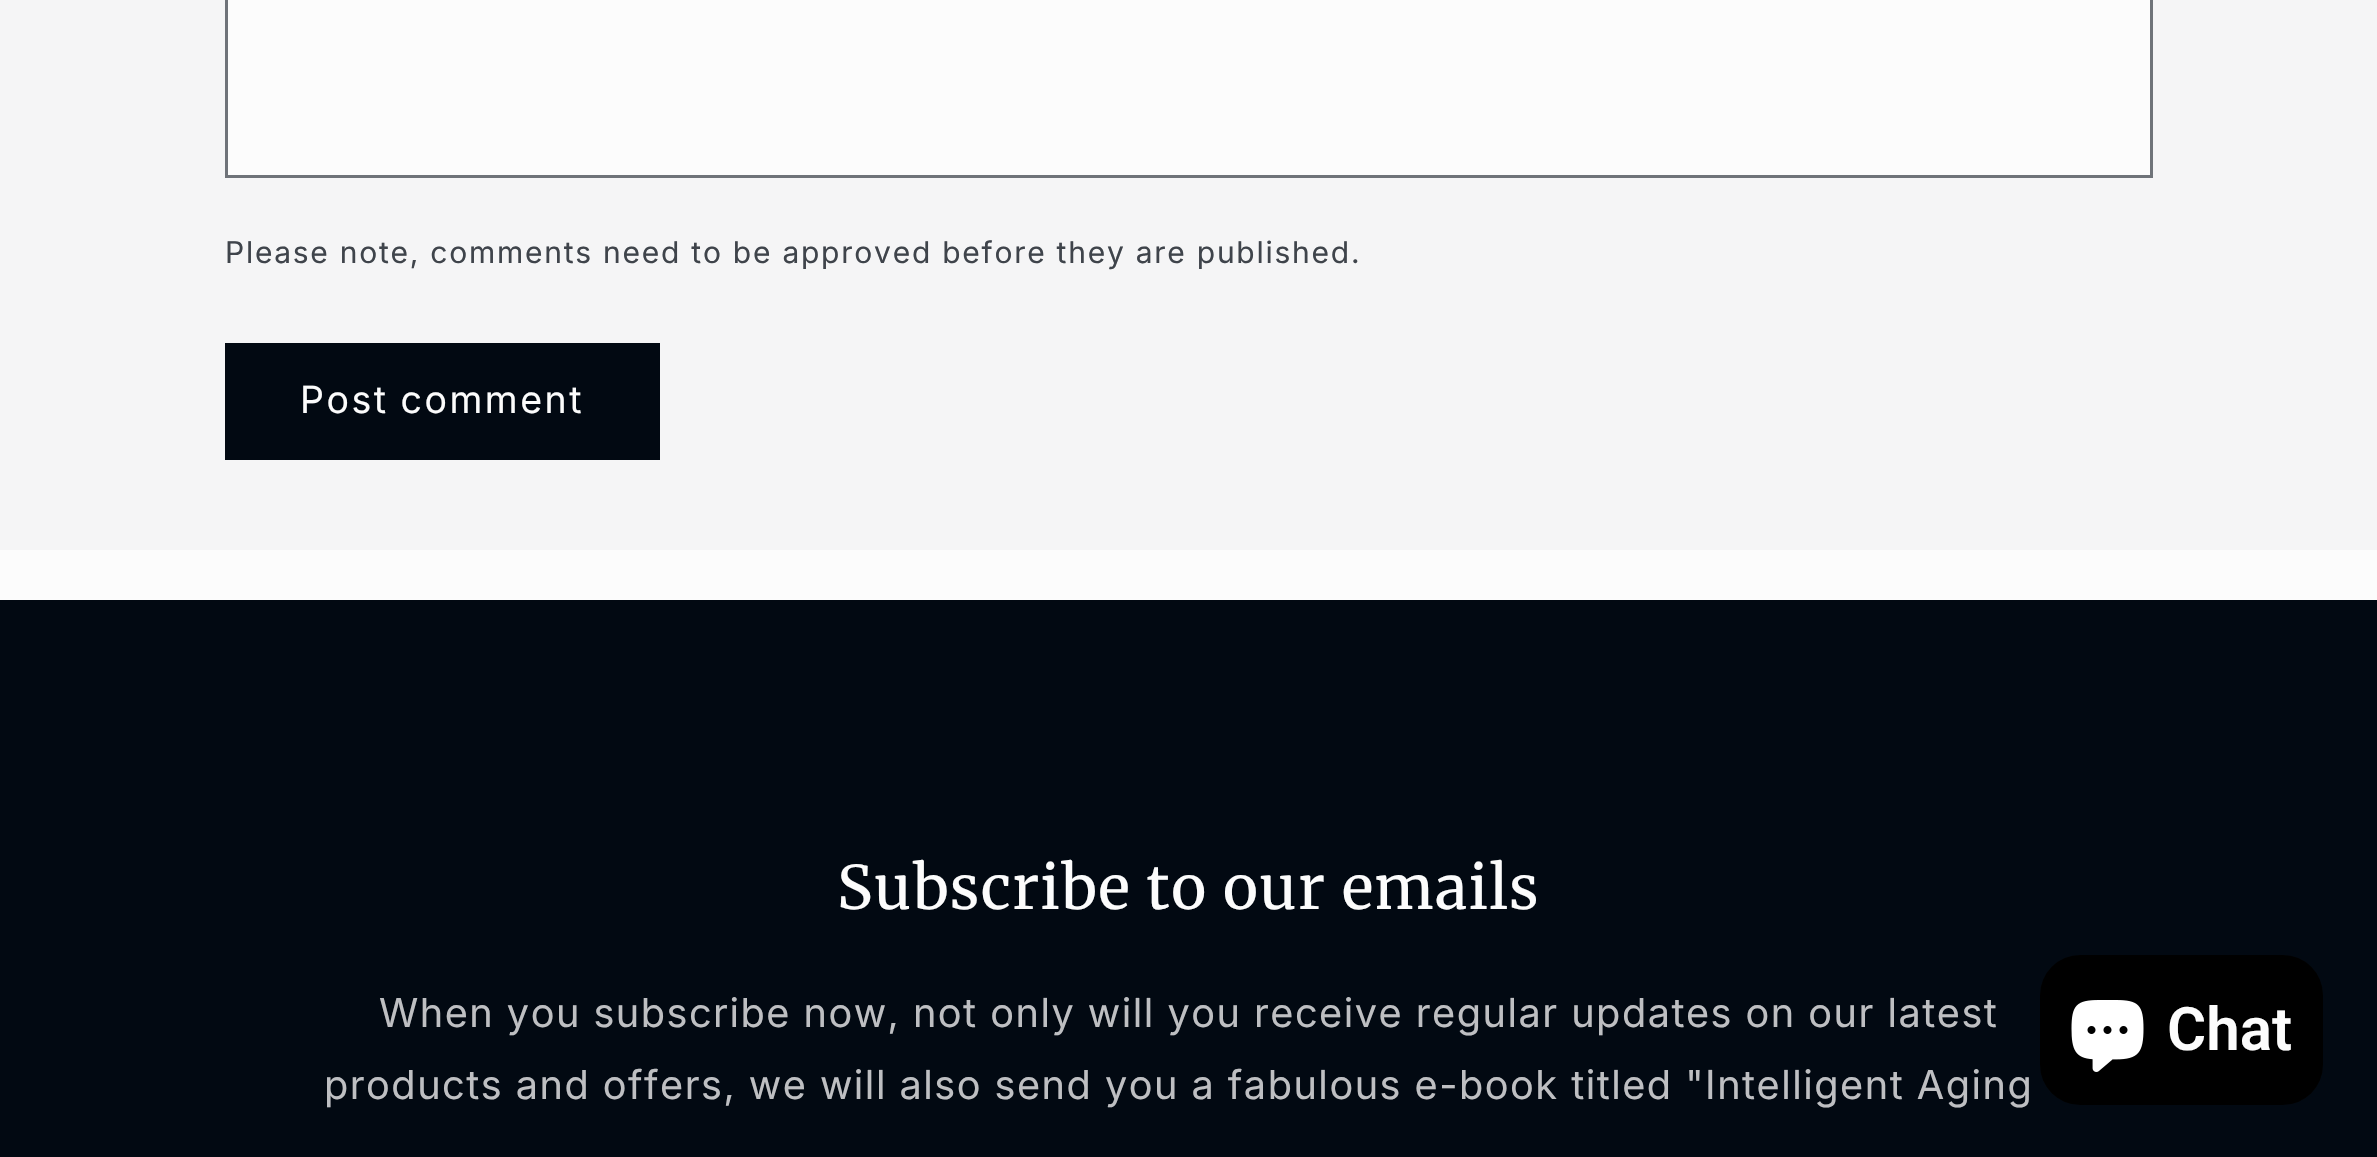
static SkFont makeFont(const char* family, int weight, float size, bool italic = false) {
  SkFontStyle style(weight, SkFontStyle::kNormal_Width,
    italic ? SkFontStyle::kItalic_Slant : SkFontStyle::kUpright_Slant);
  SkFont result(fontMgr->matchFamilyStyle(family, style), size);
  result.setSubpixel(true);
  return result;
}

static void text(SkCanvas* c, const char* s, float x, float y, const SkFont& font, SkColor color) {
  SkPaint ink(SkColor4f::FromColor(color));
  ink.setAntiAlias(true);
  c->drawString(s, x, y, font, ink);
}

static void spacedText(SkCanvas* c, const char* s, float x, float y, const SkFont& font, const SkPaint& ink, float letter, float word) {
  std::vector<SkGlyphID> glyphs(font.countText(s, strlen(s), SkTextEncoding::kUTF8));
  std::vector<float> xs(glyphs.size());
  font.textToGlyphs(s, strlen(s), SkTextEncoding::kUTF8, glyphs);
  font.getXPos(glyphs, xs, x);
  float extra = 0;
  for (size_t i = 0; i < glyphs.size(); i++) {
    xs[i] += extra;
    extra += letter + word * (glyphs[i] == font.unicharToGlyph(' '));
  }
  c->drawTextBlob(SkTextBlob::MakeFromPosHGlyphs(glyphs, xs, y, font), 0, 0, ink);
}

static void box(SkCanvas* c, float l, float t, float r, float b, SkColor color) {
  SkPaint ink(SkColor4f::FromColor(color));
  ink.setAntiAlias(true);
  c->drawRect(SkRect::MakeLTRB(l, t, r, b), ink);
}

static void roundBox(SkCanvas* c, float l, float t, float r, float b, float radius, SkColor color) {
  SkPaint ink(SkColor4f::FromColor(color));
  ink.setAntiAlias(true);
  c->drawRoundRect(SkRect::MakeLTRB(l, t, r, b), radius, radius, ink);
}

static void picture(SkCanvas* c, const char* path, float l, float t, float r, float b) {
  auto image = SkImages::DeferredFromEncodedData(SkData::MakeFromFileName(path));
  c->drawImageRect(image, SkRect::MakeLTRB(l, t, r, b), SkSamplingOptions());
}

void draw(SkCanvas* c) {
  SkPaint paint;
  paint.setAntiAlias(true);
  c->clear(0xfffcfcfc);
  box(c, 0, 0, 2377, 550, 0xfff5f5f6);
  paint.setColor(0xfffcfcfc);
  c->drawRect(SkRect::MakeLTRB(226.5f, -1.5f, 2151.5f, 176.5f), paint);
  paint.setStyle(SkPaint::kStroke_Style);
  paint.setStrokeWidth(3);
  paint.setColor(0xff6f7379);
  c->drawRect(SkRect::MakeLTRB(226.5f, -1.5f, 2151.5f, 176.5f), paint);
  SkFont face1 = makeFont("Inter", 400, 30);
  paint.setStyle(SkPaint::kFill_Style);
  paint.setColor(0xff3f444b);
  spacedText(c, "Please note, comments need to be approved before they are published.", 225, 263, face1, paint, 1.75f, 0);
  box(c, 225, 343, 660, 460, 0xff020912);
  SkFont face2 = makeFont("Inter", 400, 37.5f);
  paint.setColor(0xfffcfcfc);
  spacedText(c, "Post comment", 300, 413, face2, paint, 2.5f, -1);
  box(c, 0, 600, 2377, 1157, 0xff020912);
  SkFont face3 = makeFont("Merriweather", 400, 60);
  spacedText(c, "Subscribe to our emails", 837, 909, face3, paint, 1.5f, 0);
  SkFont face4 = makeFont("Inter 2", 400, 40);
  paint.setColor(0xffbebfc2);
  spacedText(c, "When you subscribe now, not only will you receive regular updates on our latest", 379, 1027, face4, paint, 1.5f, 0);
  spacedText(c, "products and offers, we will also send you a fabulous e-book titled \"Intelligent Aging", 324, 1099, face4, paint, 1.5f, 0);
  roundBox(c, 2040, 955, 2323, 1105, 40, 0xff000000);
  picture(c, "img_01.png", 2071, 1000, 2144, 1072);
  SkFont face5 = makeFont("Roboto", 600, 60);
  text(c, "Chat", 2167, 1050, face5, 0xfffcfcfc);
}
